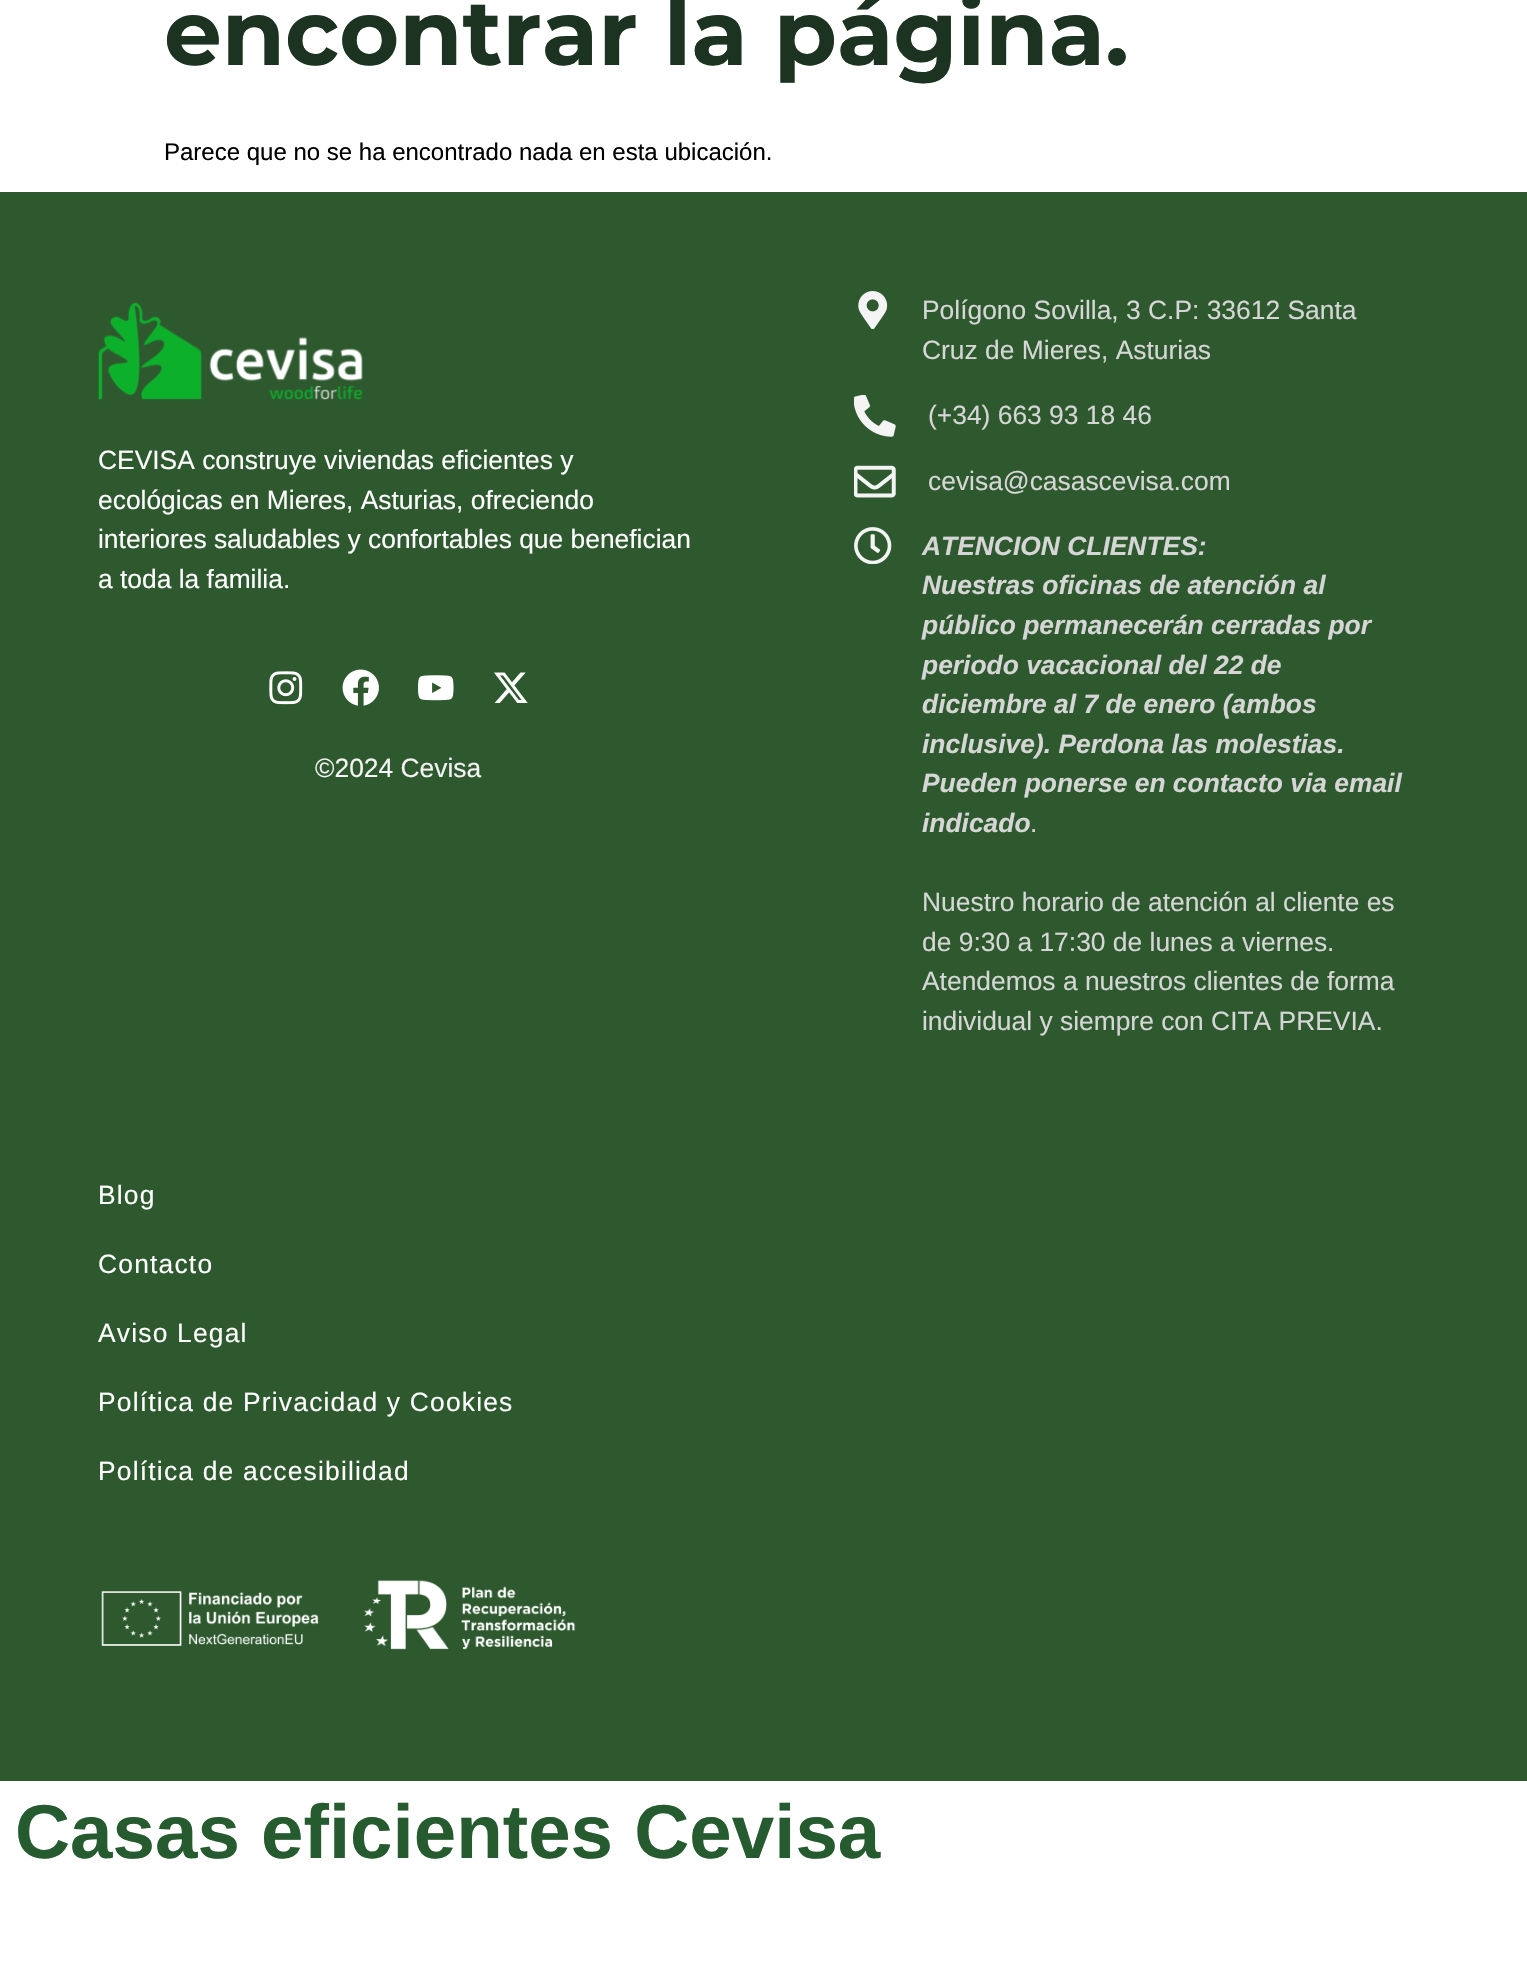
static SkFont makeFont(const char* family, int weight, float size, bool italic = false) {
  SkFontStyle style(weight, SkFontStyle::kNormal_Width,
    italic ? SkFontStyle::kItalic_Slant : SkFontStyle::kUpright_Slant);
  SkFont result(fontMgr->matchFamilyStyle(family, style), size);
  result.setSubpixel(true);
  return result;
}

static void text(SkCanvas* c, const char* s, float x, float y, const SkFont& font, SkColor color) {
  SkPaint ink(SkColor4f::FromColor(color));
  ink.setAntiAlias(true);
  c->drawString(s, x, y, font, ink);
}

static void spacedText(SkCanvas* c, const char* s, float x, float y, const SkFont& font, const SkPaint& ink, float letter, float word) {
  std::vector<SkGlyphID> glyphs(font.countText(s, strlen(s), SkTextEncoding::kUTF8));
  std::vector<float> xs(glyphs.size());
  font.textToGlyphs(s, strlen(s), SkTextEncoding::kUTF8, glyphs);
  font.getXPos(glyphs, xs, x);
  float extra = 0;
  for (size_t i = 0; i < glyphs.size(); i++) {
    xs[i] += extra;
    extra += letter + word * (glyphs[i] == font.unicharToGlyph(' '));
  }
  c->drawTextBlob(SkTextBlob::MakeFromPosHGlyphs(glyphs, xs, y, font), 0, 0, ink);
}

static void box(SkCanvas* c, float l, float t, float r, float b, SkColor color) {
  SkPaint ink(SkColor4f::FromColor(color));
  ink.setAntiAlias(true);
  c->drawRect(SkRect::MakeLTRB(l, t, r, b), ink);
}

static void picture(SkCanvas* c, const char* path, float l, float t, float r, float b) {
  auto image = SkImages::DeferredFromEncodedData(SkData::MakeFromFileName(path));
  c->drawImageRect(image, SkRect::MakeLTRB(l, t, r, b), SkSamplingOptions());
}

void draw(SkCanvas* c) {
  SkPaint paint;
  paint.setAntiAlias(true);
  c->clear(0xffffffff);
  SkFont face1 = makeFont("Montserrat", 700, 91.6f);
  text(c, "encontrar la página.", 164, 65, face1, 0xff1d3321);
  SkFont face2 = makeFont("Liberation Sans", 400, 24);
  text(c, "Parece que no se ha encontrado nada en esta ubicación.", 164, 160, face2, 0xff000000);
  box(c, 0, 192, 1527, 1781, 0xff2e592f);
  picture(c, "img_01.png", 98, 302, 363, 400);
  SkFont face3 = makeFont("Liberation Sans", 400, 26.4f);
  text(c, "CEVISA construye viviendas eficientes y", 98, 469, face3, 0xffffffff);
  text(c, "ecológicas en Mieres, Asturias, ofreciendo", 98, 509, face3, 0xffffffff);
  text(c, "interiores saludables y confortables que benefician", 98, 548, face3, 0xffffffff);
  text(c, "a toda la familia.", 98, 588, face3, 0xffffffff);
  picture(c, "img_02.png", 269, 671, 303, 705);
  picture(c, "img_03.png", 342, 669, 379, 706);
  picture(c, "img_04.png", 418, 675, 454, 701);
  picture(c, "img_05.png", 494, 672, 528, 703);
  text(c, "©2024 Cevisa", 315, 777, face3, 0xfff4f4f4);
  picture(c, "img_06.png", 858, 291, 888, 329);
  text(c, "Polígono Sovilla, 3 C.P: 33612 Santa", 922, 319, face3, 0xffd6d6d6);
  text(c, "Cruz de Mieres, Asturias", 922, 359, face3, 0xffd6d6d6);
  picture(c, "img_07.png", 854, 395, 896, 437);
  text(c, "(+34) 663 93 18 46", 928, 424, face3, 0xffd6d6d6);
  picture(c, "img_08.png", 854, 465, 896, 498);
  text(c, "cevisa@casascevisa.com", 928, 490, face3, 0xffd6d6d6);
  picture(c, "img_09.png", 854, 527, 892, 564);
  SkFont face4 = makeFont("Liberation Sans", 700, 26.4f, true);
  text(c, "ATENCION CLIENTES:", 922, 555, face4, 0xffd6d6d6);
  text(c, "Nuestras oficinas de atención al", 922, 594, face4, 0xffd6d6d6);
  text(c, "público permanecerán cerradas por", 922, 634, face4, 0xffd6d6d6);
  text(c, "periodo vacacional del 22 de", 922, 674, face4, 0xffd6d6d6);
  text(c, "diciembre al 7 de enero (ambos", 922, 713, face4, 0xffd6d6d6);
  text(c, "inclusive). Perdona las molestias.", 922, 753, face4, 0xffd6d6d6);
  text(c, "Pueden ponerse en contacto via email", 922, 792, face4, 0xffd6d6d6);
  text(c, "indicado", 922, 832, face4, 0xffd6d6d6);
  text(c, ".", 1030, 832, face3, 0xffd6d6d6);
  text(c, "Nuestro horario de atención al cliente es", 922, 911, face3, 0xffd6d6d6);
  text(c, "de 9:30 a 17:30 de lunes a viernes.", 922, 951, face3, 0xffd6d6d6);
  text(c, "Atendemos a nuestros clientes de forma", 922, 990, face3, 0xffd6d6d6);
  text(c, "individual y siempre con CITA PREVIA.", 922, 1030, face3, 0xffd6d6d6);
  paint.setColor(0xffffffff);
  spacedText(c, "Blog", 98, 1204, face3, paint, 1.2f, 0);
  spacedText(c, "Contacto", 98, 1273, face3, paint, 1.2f, 0);
  spacedText(c, "Aviso Legal", 98, 1342, face3, paint, 1.2f, 0);
  spacedText(c, "Política de Privacidad y Cookies", 98, 1411, face3, paint, 1.2f, 0);
  spacedText(c, "Política de accesibilidad", 98, 1480, face3, paint, 1.2f, 0);
  picture(c, "img_10.png", 101, 1591, 319, 1646);
  picture(c, "img_11.png", 364, 1580, 576, 1650);
  SkFont face5 = makeFont("Liberation Sans", 700, 76.3f);
  text(c, "Casas eficientes Cevisa", 15, 1858, face5, 0xff255b2f);
}
